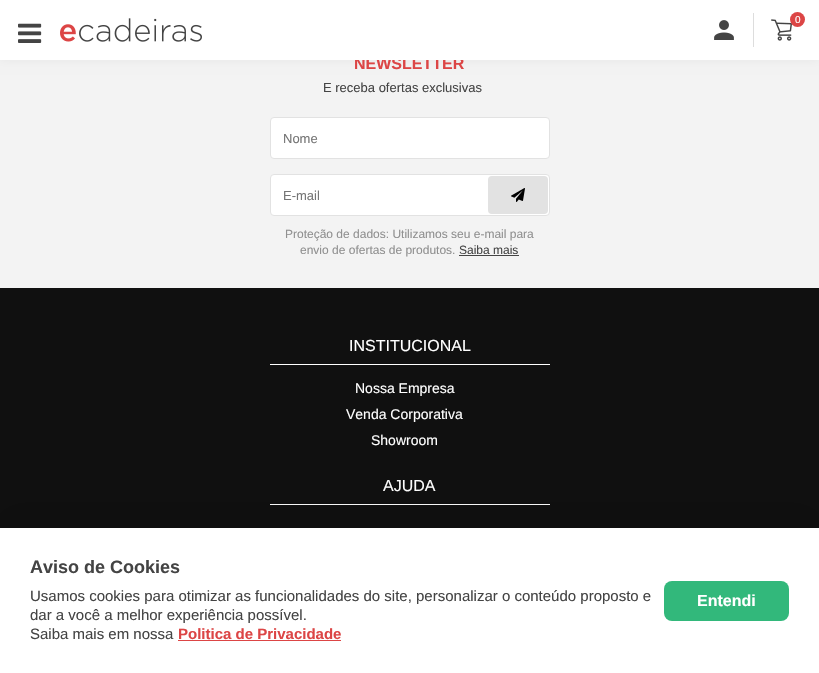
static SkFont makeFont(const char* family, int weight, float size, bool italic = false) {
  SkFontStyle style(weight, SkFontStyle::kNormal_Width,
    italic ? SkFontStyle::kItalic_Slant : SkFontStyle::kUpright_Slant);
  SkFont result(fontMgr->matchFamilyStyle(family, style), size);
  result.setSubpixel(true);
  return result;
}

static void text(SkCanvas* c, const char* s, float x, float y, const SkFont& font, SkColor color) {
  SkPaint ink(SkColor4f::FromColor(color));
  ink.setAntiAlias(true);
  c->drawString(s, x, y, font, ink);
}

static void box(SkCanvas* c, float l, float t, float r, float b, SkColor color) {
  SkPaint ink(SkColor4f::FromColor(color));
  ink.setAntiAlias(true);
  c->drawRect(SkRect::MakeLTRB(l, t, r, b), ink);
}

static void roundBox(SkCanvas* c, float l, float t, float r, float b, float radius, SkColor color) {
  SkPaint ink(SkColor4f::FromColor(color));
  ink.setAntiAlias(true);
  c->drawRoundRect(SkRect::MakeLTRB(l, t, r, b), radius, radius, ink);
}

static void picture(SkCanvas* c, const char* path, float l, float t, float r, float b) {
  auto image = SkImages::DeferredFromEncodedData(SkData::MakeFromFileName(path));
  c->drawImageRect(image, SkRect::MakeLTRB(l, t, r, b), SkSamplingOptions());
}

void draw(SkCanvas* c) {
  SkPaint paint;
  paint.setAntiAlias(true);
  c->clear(0xfff3f3f3);
  paint.setColor(0x0d000000);
  paint.setMaskFilter(SkMaskFilter::MakeBlur(kNormal_SkBlurStyle, 5));
  c->drawRect(SkRect::MakeLTRB(0, 0, 819, 60), paint);
  paint.setMaskFilter(nullptr);
  SkFont face1 = makeFont("Arimo", 700, 16);
  text(c, "NEWSLETTER", 354, 69, face1, 0xffdc4545);
  box(c, 0, 0, 819, 60, 0xffffffff);
  picture(c, "img_01.png", 18, 23, 42, 43);
  picture(c, "img_02.png", 60, 18, 202, 42);
  picture(c, "img_03.png", 714, 20, 734, 40);
  box(c, 753, 13, 754, 47, 0xffdddddd);
  picture(c, "img_04.png", 771, 19, 792, 41);
  paint.setColor(0xffdc4545);
  c->drawCircle(797.5f, 19.5f, 7.5f, paint);
  SkFont face2 = makeFont("Arimo", 400, 10);
  text(c, "0", 795, 23, face2, 0xffffffff);
  SkFont face3 = makeFont("Arimo", 400, 13);
  text(c, "E receba ofertas exclusivas", 323, 92, face3, 0xff444444);
  paint.setColor(0xffffffff);
  c->drawRoundRect(SkRect::MakeLTRB(270.5f, 117.5f, 549.5f, 158.5f), 3.5f, 3.5f, paint);
  paint.setStyle(SkPaint::kStroke_Style);
  paint.setStrokeWidth(1);
  paint.setColor(0xffe2e2e2);
  c->drawRoundRect(SkRect::MakeLTRB(270.5f, 117.5f, 549.5f, 158.5f), 3.5f, 3.5f, paint);
  text(c, "Nome", 283, 143, face3, 0xff757575);
  paint.setStyle(SkPaint::kFill_Style);
  paint.setColor(0xffffffff);
  c->drawRoundRect(SkRect::MakeLTRB(270.5f, 174.5f, 549.5f, 215.5f), 3.5f, 3.5f, paint);
  paint.setStyle(SkPaint::kStroke_Style);
  paint.setColor(0xffe2e2e2);
  c->drawRoundRect(SkRect::MakeLTRB(270.5f, 174.5f, 549.5f, 215.5f), 3.5f, 3.5f, paint);
  text(c, "E-mail", 283, 200, face3, 0xff757575);
  roundBox(c, 488, 176, 548, 214, 4, 0xffe2e2e2);
  picture(c, "img_05.png", 511, 188, 525, 202);
  SkFont face4 = makeFont("Arimo", 400, 12);
  text(c, "Proteção de dados: Utilizamos seu e-mail para", 285, 238, face4, 0xff909090);
  text(c, "envio de ofertas de produtos.", 300, 254, face4, 0xff909090);
  text(c, "Saiba mais", 459, 254, face4, 0xff444444);
  box(c, 459, 255, 519, 256, 0xff444444);
  box(c, 0, 288, 819, 528, 0xff101010);
  box(c, 270, 364, 550, 365, 0xffffffff);
  SkFont face5 = makeFont("Arimo", 400, 16);
  text(c, "INSTITUCIONAL", 349, 351, face5, 0xffffffff);
  SkFont face6 = makeFont("Arimo", 400, 14);
  text(c, "Nossa Empresa", 355, 393, face6, 0xffffffff);
  text(c, "Venda Corporativa", 346, 419, face6, 0xffffffff);
  text(c, "Showroom", 371, 445, face6, 0xffffffff);
  box(c, 270, 504, 550, 505, 0xffffffff);
  text(c, "AJUDA", 383, 491, face5, 0xffffffff);
  paint.setStyle(SkPaint::kFill_Style);
  paint.setColor(0x1a000000);
  paint.setMaskFilter(SkMaskFilter::MakeBlur(kNormal_SkBlurStyle, 16));
  c->drawRect(SkRect::MakeLTRB(0, 512, 819, 657), paint);
  paint.setMaskFilter(nullptr);
  box(c, 0, 528, 819, 673, 0xffffffff);
  SkFont face7 = makeFont("Arimo", 700, 18);
  text(c, "Aviso de Cookies", 30, 573, face7, 0xff444444);
  SkFont face8 = makeFont("Arimo", 400, 15);
  text(c, "Usamos cookies para otimizar as funcionalidades do site, personalizar o conteúdo proposto e", 30, 601, face8, 0xff444444);
  text(c, "dar a você a melhor experiência possível.", 30, 620, face8, 0xff444444);
  text(c, "Saiba mais em nossa", 30, 639, face8, 0xff444444);
  SkFont face9 = makeFont("Arimo", 700, 15);
  text(c, "Politica de Privacidade", 178, 639, face9, 0xffdc4545);
  box(c, 178, 640, 341, 641, 0xffdc4545);
  roundBox(c, 664, 581, 789, 621, 8, 0xff32b87b);
  text(c, "Entendi", 697, 606, face1, 0xffffffff);
}
